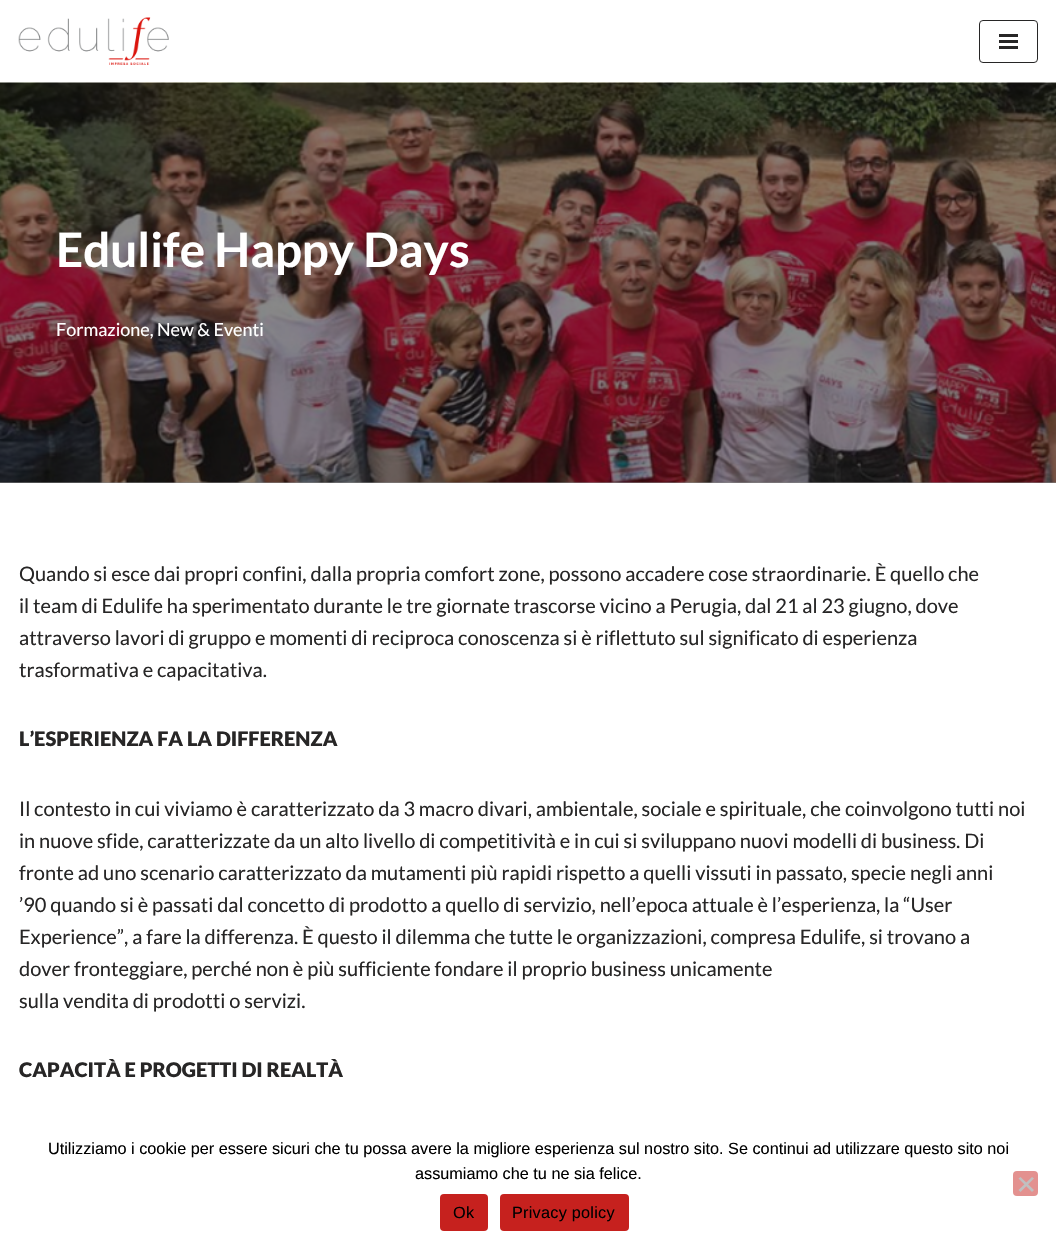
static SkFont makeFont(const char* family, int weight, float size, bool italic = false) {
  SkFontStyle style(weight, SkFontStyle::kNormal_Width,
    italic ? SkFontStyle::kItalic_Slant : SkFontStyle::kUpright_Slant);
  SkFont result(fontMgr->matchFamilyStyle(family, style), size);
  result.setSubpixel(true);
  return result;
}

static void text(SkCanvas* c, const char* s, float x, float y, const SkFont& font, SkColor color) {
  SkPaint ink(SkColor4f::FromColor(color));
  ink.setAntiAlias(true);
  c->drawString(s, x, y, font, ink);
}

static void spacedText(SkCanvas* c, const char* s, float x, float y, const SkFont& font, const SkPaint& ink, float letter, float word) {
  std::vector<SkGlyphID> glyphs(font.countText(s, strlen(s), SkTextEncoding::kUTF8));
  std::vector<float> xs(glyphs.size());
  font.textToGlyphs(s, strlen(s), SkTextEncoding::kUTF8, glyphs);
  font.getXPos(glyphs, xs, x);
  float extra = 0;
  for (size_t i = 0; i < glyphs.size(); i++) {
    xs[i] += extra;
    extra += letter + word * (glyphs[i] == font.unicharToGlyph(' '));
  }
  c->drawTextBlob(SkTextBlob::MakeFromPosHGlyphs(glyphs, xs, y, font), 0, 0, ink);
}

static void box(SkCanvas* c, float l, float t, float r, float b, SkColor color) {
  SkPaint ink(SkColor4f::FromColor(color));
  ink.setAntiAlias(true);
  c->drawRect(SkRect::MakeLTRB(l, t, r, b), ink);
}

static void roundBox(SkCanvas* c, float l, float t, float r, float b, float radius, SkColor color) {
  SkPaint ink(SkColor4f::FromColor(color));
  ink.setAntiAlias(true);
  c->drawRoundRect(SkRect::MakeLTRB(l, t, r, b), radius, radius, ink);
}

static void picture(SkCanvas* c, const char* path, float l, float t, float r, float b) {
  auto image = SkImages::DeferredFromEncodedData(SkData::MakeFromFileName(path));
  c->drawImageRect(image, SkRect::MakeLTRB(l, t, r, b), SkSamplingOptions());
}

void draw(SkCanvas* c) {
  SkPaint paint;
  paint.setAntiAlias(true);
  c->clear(0xffffffff);
  picture(c, "img_01.png", 18, 17, 169, 65);
  paint.setStyle(SkPaint::kStroke_Style);
  paint.setStrokeWidth(1);
  paint.setColor(0xff272626);
  c->drawRoundRect(SkRect::MakeLTRB(979.5f, 20.5f, 1037.5f, 62.5f), 3.5f, 3.5f, paint);
  box(c, 999, 34, 1018, 37, 0xff272626);
  box(c, 999, 40, 1018, 43, 0xff272626);
  box(c, 999, 46, 1018, 49, 0xff272626);
  picture(c, "img_02.png", 0, 82, 1056, 483);
  box(c, 0, 83, 1056, 483, 0x80121212);
  SkFont face1 = makeFont("Lato", 700, 47.5f);
  text(c, "Edulife Happy Days", 56, 267, face1, 0xffffffff);
  SkFont face2 = makeFont("Lato", 400, 18);
  text(c, "Formazione, New & Eventi", 56, 336, face2, 0xffffffff);
  SkFont face3 = makeFont("Lato", 400, 20);
  text(c, "Quando si esce dai propri confini, dalla propria comfort zone, possono accadere cose straordinarie. È quello che", 19, 581, face3, 0xff272626);
  text(c, "il team di Edulife ha sperimentato durante le tre giornate trascorse vicino a Perugia, dal 21 al 23 giugno, dove", 19, 613, face3, 0xff272626);
  text(c, "attraverso lavori di gruppo e momenti di reciproca conoscenza si è riflettuto sul significato di esperienza", 19, 645, face3, 0xff272626);
  text(c, "trasformativa e capacitativa.", 19, 677, face3, 0xff272626);
  SkFont face4 = makeFont("Lato", 900, 20);
  text(c, "L’ESPERIENZA FA LA DIFFERENZA", 19, 746, face4, 0xff272626);
  text(c, "Il contesto in cui viviamo è caratterizzato da 3 macro divari, ambientale, sociale e spirituale, che coinvolgono tutti noi", 19, 816, face3, 0xff272626);
  text(c, "in nuove sfide, caratterizzate da un alto livello di competitività e in cui si sviluppano nuovi modelli di business. Di", 19, 848, face3, 0xff272626);
  text(c, "fronte ad uno scenario caratterizzato da mutamenti più rapidi rispetto a quelli vissuti in passato, specie negli anni", 19, 880, face3, 0xff272626);
  text(c, "’90 quando si è passati dal concetto di prodotto a quello di servizio, nell’epoca attuale è l’esperienza, la “User", 19, 912, face3, 0xff272626);
  text(c, "Experience”, a fare la differenza. È questo il dilemma che tutte le organizzazioni, compresa Edulife, si trovano a", 19, 944, face3, 0xff272626);
  text(c, "dover fronteggiare, perché non è più sufficiente fondare il proprio business unicamente", 19, 976, face3, 0xff272626);
  text(c, "sulla vendita di prodotti o servizi.", 19, 1008, face3, 0xff272626);
  text(c, "CAPACITÀ E PROGETTI DI REALTÀ", 19, 1077, face4, 0xff272626);
  SkFont face5 = makeFont("Liberation Sans", 400, 16.25f);
  text(c, "Utilizziamo i cookie per essere sicuri che tu possa avere la migliore esperienza sul nostro sito. Se continui ad utilizzare questo sito noi", 48, 1154, face5, 0xff000000);
  text(c, "assumiamo che tu ne sia felice.", 415, 1179, face5, 0xff000000);
  roundBox(c, 1013, 1171, 1038, 1196, 4, 0xffe3918f);
  paint.setStyle(SkPaint::kFill_Style);
  paint.setColor(0xffc0c0c0);
  c->drawPath(SkPathBuilder().moveTo(1032, 1177).lineTo(1034, 1178.5f).lineTo(1020.5f, 1192).lineTo(1018.5f, 1190).close().detach(), paint);
  c->drawPath(SkPathBuilder().moveTo(1018.5f, 1178.5f).lineTo(1020.5f, 1177).lineTo(1034, 1190).lineTo(1032, 1192).close().detach(), paint);
  roundBox(c, 440, 1194, 488, 1231, 4, 0xffc6211e);
  paint.setColor(0xff000000);
  spacedText(c, "Ok", 453, 1218, face5, paint, 0.25f, 0);
  roundBox(c, 500, 1194, 629, 1231, 4, 0xffc6211e);
  spacedText(c, "Privacy policy", 512, 1218, face5, paint, 0.25f, 0);
}
